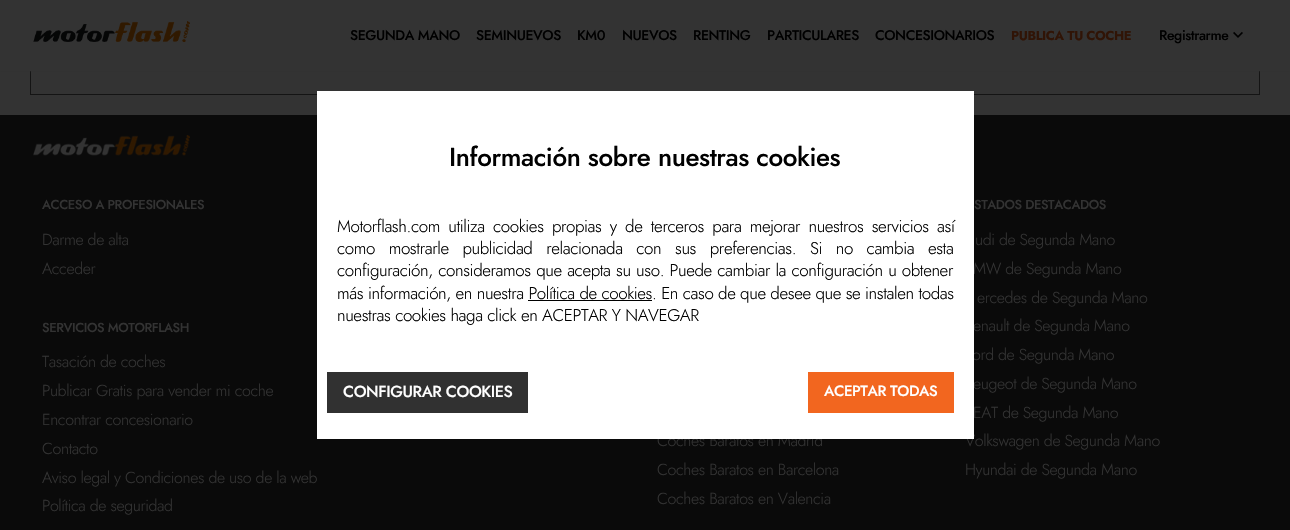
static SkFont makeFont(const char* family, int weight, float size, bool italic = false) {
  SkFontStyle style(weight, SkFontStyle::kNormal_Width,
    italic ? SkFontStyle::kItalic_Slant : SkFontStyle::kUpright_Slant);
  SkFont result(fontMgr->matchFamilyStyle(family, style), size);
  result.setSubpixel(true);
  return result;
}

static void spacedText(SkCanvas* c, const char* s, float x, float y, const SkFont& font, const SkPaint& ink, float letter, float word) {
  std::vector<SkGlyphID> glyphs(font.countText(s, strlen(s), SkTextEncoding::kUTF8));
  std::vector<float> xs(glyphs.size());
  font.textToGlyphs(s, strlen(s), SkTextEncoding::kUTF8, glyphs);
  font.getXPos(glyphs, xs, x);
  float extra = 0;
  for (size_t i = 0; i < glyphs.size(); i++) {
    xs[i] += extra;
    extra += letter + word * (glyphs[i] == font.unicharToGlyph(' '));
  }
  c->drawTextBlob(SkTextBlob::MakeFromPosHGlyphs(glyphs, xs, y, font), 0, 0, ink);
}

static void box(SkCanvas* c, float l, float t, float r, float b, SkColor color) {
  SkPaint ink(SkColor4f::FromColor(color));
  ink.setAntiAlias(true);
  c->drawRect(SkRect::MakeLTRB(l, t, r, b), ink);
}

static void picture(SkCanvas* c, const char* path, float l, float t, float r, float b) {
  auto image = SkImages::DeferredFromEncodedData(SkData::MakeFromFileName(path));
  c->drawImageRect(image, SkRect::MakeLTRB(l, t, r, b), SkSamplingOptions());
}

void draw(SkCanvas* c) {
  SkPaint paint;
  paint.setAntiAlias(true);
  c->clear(0xff333333);
  paint.setStyle(SkPaint::kStroke_Style);
  paint.setStrokeWidth(1);
  paint.setColor(0xff141414);
  c->drawRect(SkRect::MakeLTRB(30.5f, -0.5f, 1259.5f, 94.5f), paint);
  paint.setStyle(SkPaint::kFill_Style);
  paint.setColor(0xff2f302f);
  paint.setMaskFilter(SkMaskFilter::MakeBlur(kNormal_SkBlurStyle, 1));
  c->drawRect(SkRect::MakeLTRB(0, 0, 1290, 71), paint);
  paint.setMaskFilter(nullptr);
  box(c, 0, 0, 1290, 71, 0xff333333);
  picture(c, "img_01.png", 33, 21, 190, 43);
  SkFont face1 = makeFont("Jost", 500, 14);
  paint.setColor(0xff000000);
  spacedText(c, "SEGUNDA MANO", 350, 40, face1, paint, -0.4f, 0);
  spacedText(c, "SEMINUEVOS", 476, 40, face1, paint, -0.4f, 0);
  spacedText(c, "KM0", 577, 40, face1, paint, -0.4f, 0);
  spacedText(c, "NUEVOS", 622, 40, face1, paint, -0.4f, 0);
  spacedText(c, "RENTING", 693, 40, face1, paint, -0.4f, 0);
  spacedText(c, "PARTICULARES", 767, 40, face1, paint, -0.4f, 0);
  spacedText(c, "CONCESIONARIOS", 875, 40, face1, paint, -0.4f, 0);
  SkFont face2 = makeFont("Jost", 700, 13);
  paint.setColor(0xff301406);
  spacedText(c, "PUBLICA TU COCHE", 1011, 40, face2, paint, -0.4f, 0);
  paint.setColor(0xff000000);
  spacedText(c, "Registrarme", 1159, 40, face1, paint, -0.4f, 0);
  picture(c, "img_02.png", 1233, 31, 1243, 38);
  box(c, 0, 115, 1290, 530, 0xff0a0a0a);
  SkFont face3 = makeFont("Jost", 300, 16);
  paint.setColor(0xff333333);
  spacedText(c, "Coches Baratos en Madrid", 657, 446, face3, paint, -0.4f, 0);
  spacedText(c, "MW de Segunda Mano", 973, 274, face3, paint, -0.4f, 0);
  spacedText(c, "enault de Segunda Mano", 973, 331, face3, paint, -0.4f, 0);
  spacedText(c, "ord de Segunda Mano", 972, 360, face3, paint, -0.4f, 0);
  spacedText(c, "eugeot de Segunda Mano", 973, 389, face3, paint, -0.4f, 0);
  spacedText(c, "Volkswagen de Segunda Mano", 965, 446, face3, paint, -0.4f, 0);
  box(c, 317, 91, 974, 439, 0xffffffff);
  SkFont face4 = makeFont("Jost", 500, 26);
  paint.setColor(0xff000000);
  spacedText(c, "Información sobre nuestras cookies", 449, 166, face4, paint, -0.4f, 0);
  SkFont face5 = makeFont("Jost", 300, 17);
  spacedText(c, "Motorflash.com utiliza cookies propias y de terceros para mejorar nuestros servicios así", 337, 232, face5, paint, -0.4f, 3.6f);
  spacedText(c, "como mostrarle publicidad relacionada con sus preferencias.", 337, 254, face5, paint, -0.4f, 9);
  spacedText(c, "Si no cambia esta", 810, 254, face5, paint, -0.4f, 9);
  spacedText(c, "configuración, consideramos que acepta su uso. Puede cambiar la configuración u obtener", 337, 276, face5, paint, -0.4f, 0.75f);
  spacedText(c, "más información, en nuestra Política de cookies. En caso de que desee que se instalen todas", 337, 299, face5, paint, -0.4f, 0);
  box(c, 528, 300, 652, 301, 0xff000000);
  spacedText(c, "nuestras cookies haga click en ACEPTAR Y NAVEGAR", 337, 321, face5, paint, -0.4f, 0);
  box(c, 327, 372, 528, 413, 0xff313131);
  SkFont face6 = makeFont("Jost", 500, 16);
  paint.setColor(0xffffffff);
  spacedText(c, "CONFIGURAR COOKIES", 343, 397, face6, paint, -0.4f, 0);
  box(c, 808, 372, 954, 413, 0xfff2661f);
  SkFont face7 = makeFont("Jost", 500, 15);
  spacedText(c, "ACEPTAR TODAS", 824, 396, face7, paint, -0.4f, 0);
  picture(c, "img_03.png", 33, 135, 190, 156);
  SkFont face8 = makeFont("Jost", 500, 13);
  paint.setColor(0xff333333);
  spacedText(c, "ACCESO A PROFESIONALES", 42, 209, face8, paint, -0.4f, 0);
  spacedText(c, "Darme de alta", 42, 245, face3, paint, -0.4f, 0);
  spacedText(c, "Acceder", 42, 274, face3, paint, -0.4f, 0);
  spacedText(c, "SERVICIOS MOTORFLASH", 42, 332, face8, paint, -0.4f, 0);
  spacedText(c, "Tasación de coches", 42, 367, face3, paint, -0.4f, 0);
  spacedText(c, "Publicar Gratis para vender mi coche", 42, 396, face3, paint, -0.4f, 0);
  spacedText(c, "Encontrar concesionario", 42, 425, face3, paint, -0.4f, 0);
  spacedText(c, "Contacto", 42, 454, face3, paint, -0.4f, 0);
  spacedText(c, "Aviso legal y Condiciones de uso de la web", 42, 483, face3, paint, -0.4f, 0);
  spacedText(c, "Política de seguridad", 42, 511, face3, paint, -0.4f, 0);
  spacedText(c, "Coches Baratos en Barcelona", 657, 475, face3, paint, -0.4f, 0);
  spacedText(c, "Coches Baratos en Valencia", 657, 504, face3, paint, -0.4f, 0);
  spacedText(c, "STADOS DESTACADOS", 974, 209, face8, paint, -0.4f, 0);
  spacedText(c, "udi de Segunda Mano", 975, 245, face3, paint, -0.4f, 0);
  spacedText(c, "ercedes de Segunda Mano", 977, 303, face3, paint, -0.4f, 0);
  spacedText(c, "EAT de Segunda Mano", 973, 418, face3, paint, -0.4f, 0);
  spacedText(c, "Hyundai de Segunda Mano", 965, 475, face3, paint, -0.4f, 0);
}
